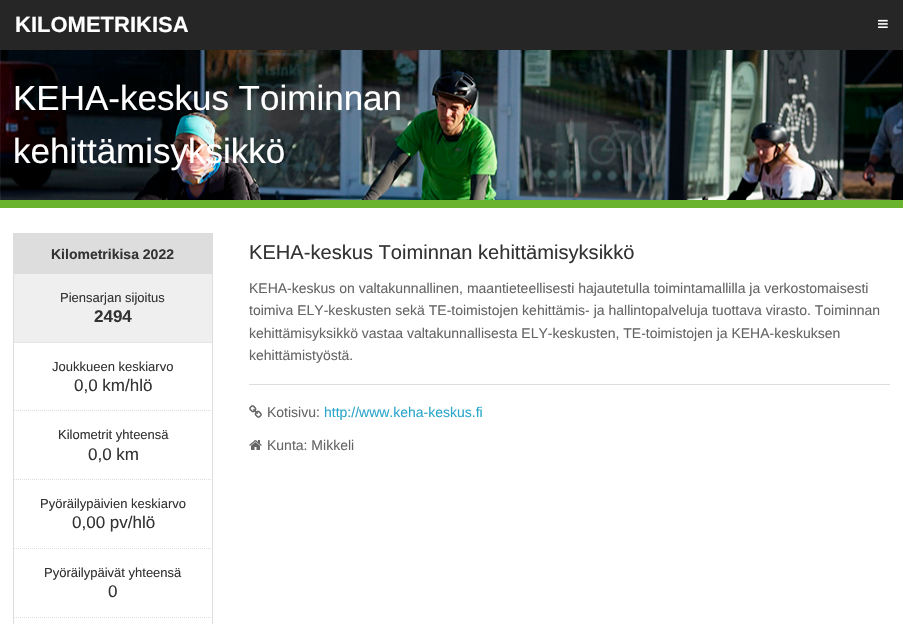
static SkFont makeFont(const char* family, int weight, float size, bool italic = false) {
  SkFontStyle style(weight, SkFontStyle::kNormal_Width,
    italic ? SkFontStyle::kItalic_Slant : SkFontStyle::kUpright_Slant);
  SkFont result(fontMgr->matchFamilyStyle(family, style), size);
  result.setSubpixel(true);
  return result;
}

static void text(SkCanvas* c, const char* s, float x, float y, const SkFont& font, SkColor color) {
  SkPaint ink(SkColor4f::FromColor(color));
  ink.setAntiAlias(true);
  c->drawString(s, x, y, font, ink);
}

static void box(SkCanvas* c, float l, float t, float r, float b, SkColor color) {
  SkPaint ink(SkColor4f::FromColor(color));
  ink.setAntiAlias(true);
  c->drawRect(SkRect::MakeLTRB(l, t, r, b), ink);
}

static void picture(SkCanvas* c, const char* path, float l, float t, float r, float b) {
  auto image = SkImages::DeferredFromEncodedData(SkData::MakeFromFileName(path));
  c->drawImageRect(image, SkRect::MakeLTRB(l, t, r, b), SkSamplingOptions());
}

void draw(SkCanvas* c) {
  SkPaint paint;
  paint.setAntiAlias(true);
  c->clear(0xffffffff);
  box(c, 0, 0, 903, 50, 0xff262626);
  SkFont face1 = makeFont("Liberation Sans", 700, 22);
  text(c, "KILOMETRIKISA", 15, 32, face1, 0xffffffff);
  picture(c, "img_01.png", 878, 19, 888, 28);
  picture(c, "img_02.png", 0, 50, 903, 200);
  box(c, 0, 200, 903, 208, 0xff6ab42d);
  SkFont face2 = makeFont("Liberation Sans", 400, 35);
  text(c, "KEHA-keskus Toiminnan", 13, 110, face2, 0xffffffff);
  text(c, "kehittämisyksikkö", 13, 163, face2, 0xffffffff);
  paint.setStyle(SkPaint::kStroke_Style);
  paint.setStrokeWidth(1);
  paint.setColor(0xffdddddd);
  c->drawRect(SkRect::MakeLTRB(13.5f, 233.5f, 212.5f, 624.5f), paint);
  box(c, 14, 234, 212, 274, 0xffdddddd);
  SkFont face3 = makeFont("Liberation Sans", 700, 14);
  text(c, "Kilometrikisa 2022", 51, 259, face3, 0xff333333);
  box(c, 14, 274, 212, 343, 0xffefefef);
  paint.setPathEffect(SkDashPathEffect::Make({{1, 1}}, 0));
  c->drawPath(SkPathBuilder().moveTo(14, 342.5f).lineTo(212, 342.5f).detach(), paint);
  paint.setPathEffect(nullptr);
  SkFont face4 = makeFont("Liberation Sans", 400, 13);
  text(c, "Piensarjan sijoitus", 60, 302, face4, 0xff333333);
  SkFont face5 = makeFont("Liberation Sans", 700, 17);
  text(c, "2494", 94, 322, face5, 0xff333333);
  paint.setPathEffect(SkDashPathEffect::Make({{1, 1}}, 0));
  c->drawPath(SkPathBuilder().moveTo(14, 410.5f).lineTo(212, 410.5f).detach(), paint);
  paint.setPathEffect(nullptr);
  text(c, "Joukkueen keskiarvo", 52, 371, face4, 0xff333333);
  SkFont face6 = makeFont("Liberation Sans", 400, 17);
  text(c, "0,0 km/hlö", 74, 391, face6, 0xff333333);
  paint.setPathEffect(SkDashPathEffect::Make({{1, 1}}, 0));
  c->drawPath(SkPathBuilder().moveTo(14, 479.5f).lineTo(212, 479.5f).detach(), paint);
  paint.setPathEffect(nullptr);
  text(c, "Kilometrit yhteensä", 58, 439, face4, 0xff333333);
  text(c, "0,0 km", 88, 460, face6, 0xff333333);
  paint.setPathEffect(SkDashPathEffect::Make({{1, 1}}, 0));
  c->drawPath(SkPathBuilder().moveTo(14, 548.5f).lineTo(212, 548.5f).detach(), paint);
  paint.setPathEffect(nullptr);
  text(c, "Pyöräilypäivien keskiarvo", 40, 508, face4, 0xff333333);
  text(c, "0,00 pv/hlö", 72, 528, face6, 0xff333333);
  paint.setPathEffect(SkDashPathEffect::Make({{1, 1}}, 0));
  c->drawPath(SkPathBuilder().moveTo(14, 617.5f).lineTo(212, 617.5f).detach(), paint);
  paint.setPathEffect(nullptr);
  text(c, "Pyöräilypäivät yhteensä", 44, 577, face4, 0xff333333);
  text(c, "0", 108, 597, face6, 0xff333333);
  SkFont face7 = makeFont("Liberation Sans", 400, 20.1f);
  text(c, "KEHA-keskus Toiminnan kehittämisyksikkö", 249, 259, face7, 0xff333333);
  SkFont face8 = makeFont("Liberation Sans", 400, 14);
  text(c, "KEHA-keskus on valtakunnallinen, maantieteellisesti hajautetulla toimintamallilla ja verkostomaisesti", 249, 293, face8, 0xff656565);
  text(c, "toimiva ELY-keskusten sekä TE-toimistojen kehittämis- ja hallintopalveluja tuottava virasto. Toiminnan", 249, 315, face8, 0xff656565);
  text(c, "kehittämisyksikkö vastaa valtakunnallisesta ELY-keskusten, TE-toimistojen ja KEHA-keskuksen", 249, 338, face8, 0xff656565);
  text(c, "kehittämistyöstä.", 249, 360, face8, 0xff656565);
  box(c, 249, 384, 890, 385, 0xffdddddd);
  picture(c, "img_03.png", 249, 405, 262, 418);
  text(c, "Kotisivu:", 267, 417, face8, 0xff656565);
  text(c, "http://www.keha-keskus.fi", 324, 417, face8, 0xff2ba6cb);
  picture(c, "img_04.png", 249, 440, 262, 450);
  text(c, "Kunta: Mikkeli", 267, 450, face8, 0xff656565);
}
